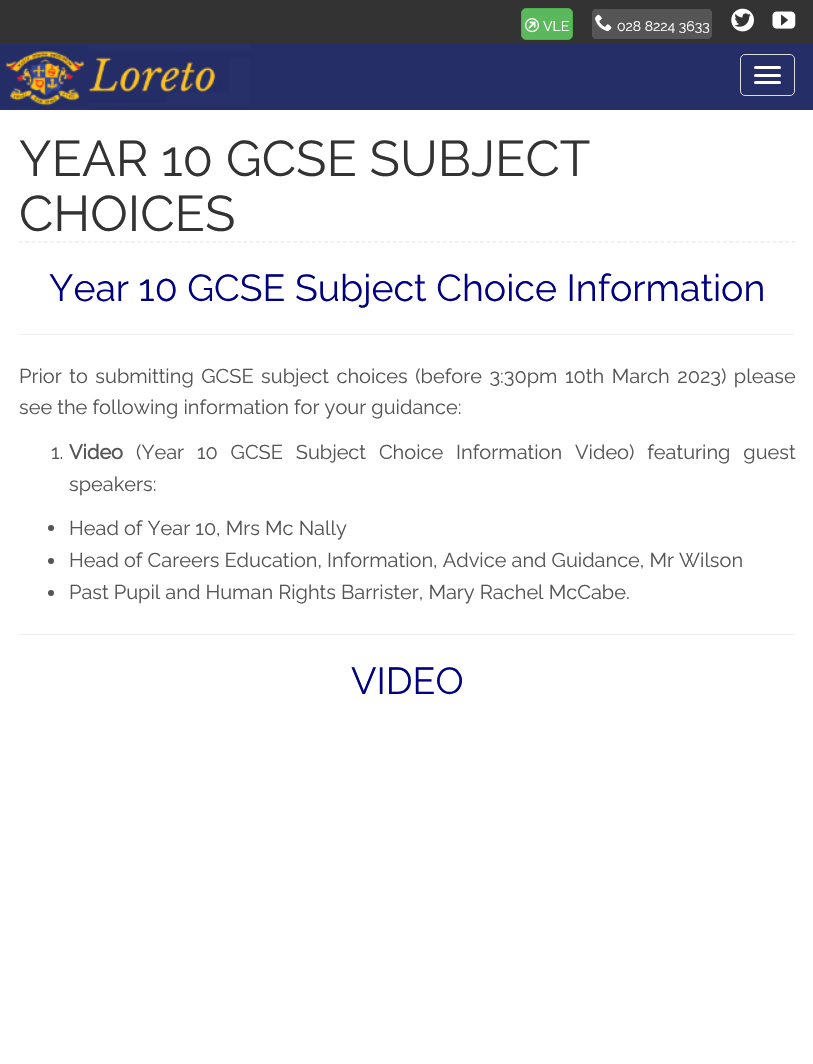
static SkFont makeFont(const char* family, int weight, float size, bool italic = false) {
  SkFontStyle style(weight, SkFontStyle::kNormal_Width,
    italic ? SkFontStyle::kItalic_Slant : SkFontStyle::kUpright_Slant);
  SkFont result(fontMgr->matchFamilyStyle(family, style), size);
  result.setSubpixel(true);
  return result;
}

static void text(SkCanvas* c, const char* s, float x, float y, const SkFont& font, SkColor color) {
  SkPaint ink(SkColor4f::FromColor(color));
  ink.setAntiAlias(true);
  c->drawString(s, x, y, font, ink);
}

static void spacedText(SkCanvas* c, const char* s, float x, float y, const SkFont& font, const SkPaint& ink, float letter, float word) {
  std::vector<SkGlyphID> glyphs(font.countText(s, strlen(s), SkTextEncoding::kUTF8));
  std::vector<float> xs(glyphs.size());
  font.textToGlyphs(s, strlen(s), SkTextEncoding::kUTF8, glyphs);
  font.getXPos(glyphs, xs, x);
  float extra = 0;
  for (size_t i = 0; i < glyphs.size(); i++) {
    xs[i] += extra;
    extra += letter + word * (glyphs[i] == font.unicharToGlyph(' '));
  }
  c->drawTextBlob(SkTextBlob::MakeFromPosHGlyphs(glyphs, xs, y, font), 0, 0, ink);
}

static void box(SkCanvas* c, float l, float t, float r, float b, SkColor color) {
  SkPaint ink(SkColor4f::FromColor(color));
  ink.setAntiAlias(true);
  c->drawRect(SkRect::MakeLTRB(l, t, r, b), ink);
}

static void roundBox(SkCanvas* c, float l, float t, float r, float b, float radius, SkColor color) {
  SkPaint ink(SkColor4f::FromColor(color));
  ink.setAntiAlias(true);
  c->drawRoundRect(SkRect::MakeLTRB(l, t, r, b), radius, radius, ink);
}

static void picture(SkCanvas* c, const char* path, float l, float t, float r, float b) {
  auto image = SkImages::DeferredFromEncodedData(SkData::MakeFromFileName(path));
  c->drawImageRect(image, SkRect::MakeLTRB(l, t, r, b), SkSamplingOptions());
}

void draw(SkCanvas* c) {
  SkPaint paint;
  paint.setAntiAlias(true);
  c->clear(0xffffffff);
  box(c, 0, 0, 813, 44, 0xff333333);
  paint.setColor(0xff5cb85c);
  c->drawRoundRect(SkRect::MakeLTRB(521.5f, 8.5f, 572.5f, 39.5f), 4.5f, 4.5f, paint);
  paint.setStyle(SkPaint::kStroke_Style);
  paint.setStrokeWidth(1);
  paint.setColor(0xff4cae4c);
  c->drawRoundRect(SkRect::MakeLTRB(521.5f, 8.5f, 572.5f, 39.5f), 4.5f, 4.5f, paint);
  picture(c, "img_01.png", 525, 18, 539, 33);
  SkFont face1 = makeFont("Raleway", 100, 14);
  text(c, "VLE", 543, 31, face1, 0xffffffff);
  paint.setStyle(SkPaint::kFill_Style);
  paint.setColor(0xff555555);
  c->drawRoundRect(SkRect::MakeLTRB(591.5f, 8.5f, 712.5f, 39.5f), 4.5f, 4.5f, paint);
  paint.setStyle(SkPaint::kStroke_Style);
  paint.setColor(0xff333333);
  c->drawRoundRect(SkRect::MakeLTRB(591.5f, 8.5f, 712.5f, 39.5f), 4.5f, 4.5f, paint);
  picture(c, "img_02.png", 595, 14, 612, 32);
  text(c, "028 8224 3633", 617, 31, face1, 0xffffffff);
  picture(c, "img_03.png", 731, 8, 754, 32);
  picture(c, "img_04.png", 772, 11, 796, 29);
  box(c, 0, 44, 813, 110, 0xff262e67);
  picture(c, "img_05.png", 0, 43, 250, 106);
  paint.setColor(0xffdddddd);
  c->drawRoundRect(SkRect::MakeLTRB(740.5f, 54.5f, 794.5f, 95.5f), 4.5f, 4.5f, paint);
  roundBox(c, 754, 66, 781, 69, 1.5f, 0xffffffff);
  roundBox(c, 754, 74, 781, 77, 1.5f, 0xffffffff);
  roundBox(c, 754, 81, 781, 84, 1.5f, 0xffffffff);
  paint.setStrokeWidth(1.2f);
  paint.setColor(0xffe4e4e4);
  paint.setPathEffect(SkDashPathEffect::Make({{3.75f, 2.48f}}, 0));
  c->drawPath(SkPathBuilder().moveTo(19, 242).lineTo(795, 242).detach(), paint);
  paint.setPathEffect(nullptr);
  SkFont face2 = makeFont("Raleway", 100, 50);
  text(c, "YEAR 10 GCSE SUBJECT", 19, 176, face2, 0xff333333);
  text(c, "CHOICES", 19, 231, face2, 0xff333333);
  SkFont face3 = makeFont("Raleway", 100, 37.5f);
  text(c, "Year 10 GCSE Subject Choice Information", 49, 301, face3, 0xff000080);
  box(c, 19, 334, 795, 335, 0xffeeeeee);
  SkFont face4 = makeFont("Raleway", 100, 20);
  paint.setStyle(SkPaint::kFill_Style);
  paint.setColor(0xff555555);
  spacedText(c, "Prior to submitting GCSE subject choices (before 3:30pm 10th March 2023) please", 19, 383, face4, paint, 0, 2.4f);
  text(c, "see the following information for your guidance:", 19, 414, face4, 0xff555555);
  text(c, "1.", 51, 459, face4, 0xff555555);
  SkFont face5 = makeFont("Raleway", 700, 20);
  text(c, "Video", 69, 459, face5, 0xff555555);
  spacedText(c, "(Year 10 GCSE Subject Choice Information Video) featuring guest", 136, 459, face4, paint, 0, 7.75f);
  text(c, "speakers:", 69, 491, face4, 0xff555555);
  c->drawCircle(51, 528, 3, paint);
  text(c, "Head of Year 10, Mrs Mc Nally", 69, 535, face4, 0xff555555);
  c->drawCircle(51, 561, 3, paint);
  text(c, "Head of Careers Education, Information, Advice and Guidance, Mr Wilson", 69, 567, face4, 0xff555555);
  c->drawCircle(51, 593, 3, paint);
  text(c, "Past Pupil and Human Rights Barrister, Mary Rachel McCabe.", 69, 599, face4, 0xff555555);
  box(c, 19, 634, 795, 635, 0xffeeeeee);
  text(c, "VIDEO", 351, 694, face3, 0xff000080);
}
